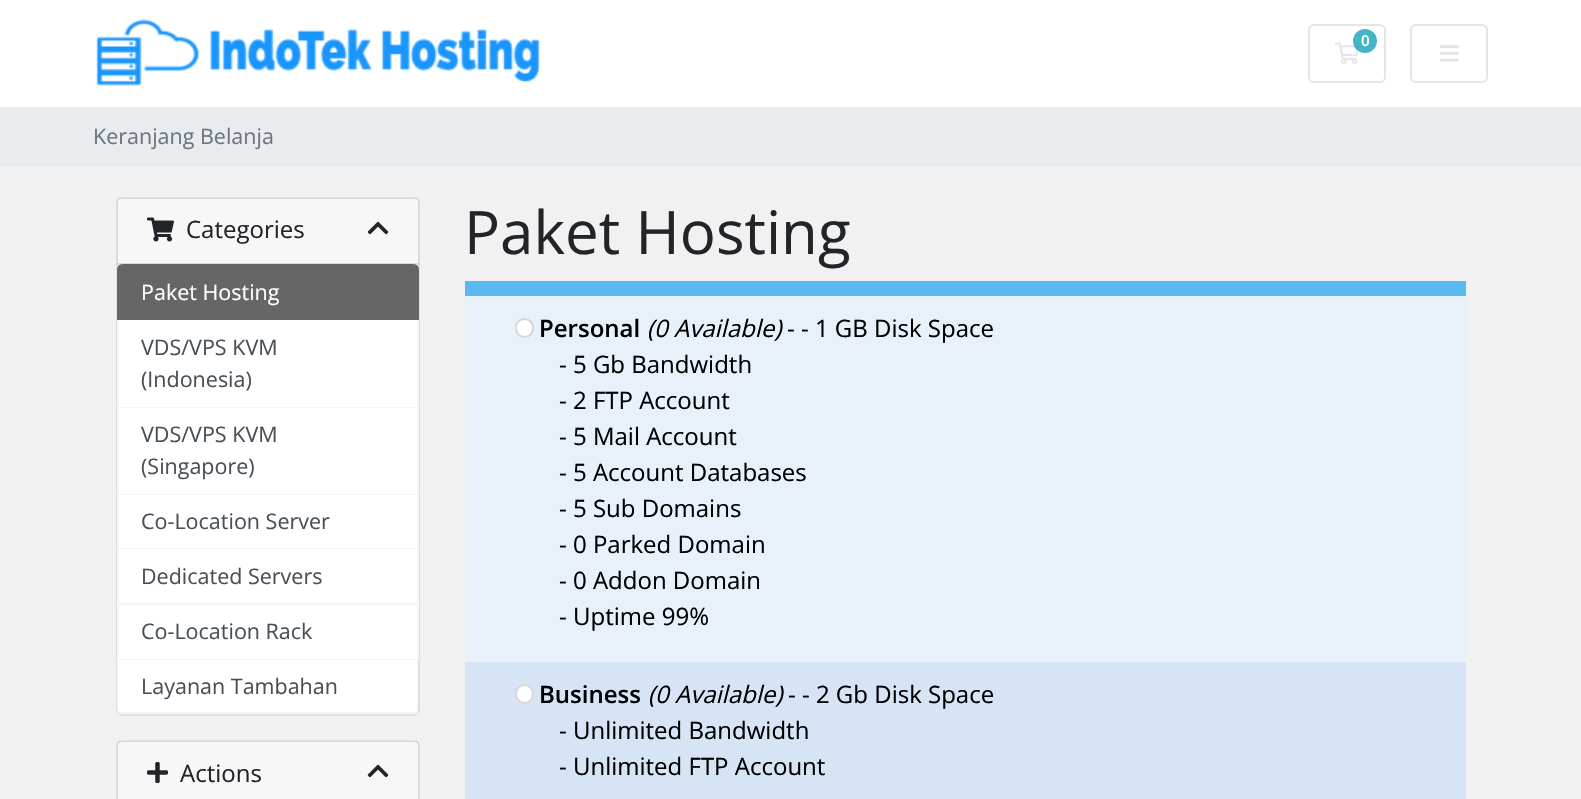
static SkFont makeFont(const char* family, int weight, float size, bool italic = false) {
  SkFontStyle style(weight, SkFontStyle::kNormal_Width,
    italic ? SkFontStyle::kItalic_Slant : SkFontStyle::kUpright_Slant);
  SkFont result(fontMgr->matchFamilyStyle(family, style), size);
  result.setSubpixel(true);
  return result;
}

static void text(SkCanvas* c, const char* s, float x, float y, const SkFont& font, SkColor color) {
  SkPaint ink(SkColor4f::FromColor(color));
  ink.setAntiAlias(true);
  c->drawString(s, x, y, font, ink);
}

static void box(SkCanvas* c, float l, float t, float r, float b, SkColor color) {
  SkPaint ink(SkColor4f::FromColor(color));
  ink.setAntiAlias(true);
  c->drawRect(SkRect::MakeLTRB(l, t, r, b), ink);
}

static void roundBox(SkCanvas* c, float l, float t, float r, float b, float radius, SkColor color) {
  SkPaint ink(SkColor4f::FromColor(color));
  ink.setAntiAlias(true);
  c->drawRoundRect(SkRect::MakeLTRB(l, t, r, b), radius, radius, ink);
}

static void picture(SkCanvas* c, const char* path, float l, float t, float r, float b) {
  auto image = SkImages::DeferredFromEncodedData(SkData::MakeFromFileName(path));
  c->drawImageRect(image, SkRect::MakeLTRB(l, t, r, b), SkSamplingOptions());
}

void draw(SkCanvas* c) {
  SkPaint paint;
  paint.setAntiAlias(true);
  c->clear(0xfff1f1f1);
  box(c, 0, 0, 1581, 107, 0xffffffff);
  picture(c, "img_01.png", 96, 19, 541, 86);
  paint.setStyle(SkPaint::kStroke_Style);
  paint.setStrokeWidth(2);
  paint.setColor(0xffe5e5e5);
  c->drawRoundRect(SkRect::MakeLTRB(1309, 25, 1385, 82), 5, 5, paint);
  picture(c, "img_02.png", 1335, 42, 1360, 64);
  paint.setStyle(SkPaint::kFill_Style);
  paint.setColor(0xcc17a2b8);
  c->drawCircle(1365, 41, 12, paint);
  SkFont face1 = makeFont("Open Sans", 600, 15);
  text(c, "0", 1361, 46, face1, 0xffffffff);
  paint.setStyle(SkPaint::kStroke_Style);
  paint.setColor(0xffe5e5e5);
  c->drawRoundRect(SkRect::MakeLTRB(1411, 25, 1487, 82), 5, 5, paint);
  picture(c, "img_03.png", 1440, 45, 1459, 62);
  box(c, 0, 107, 1581, 167, 0xffe9ecef);
  SkFont face2 = makeFont("Open Sans", 400, 21.5f);
  text(c, "Keranjang Belanja", 93, 144, face2, 0xff6c757d);
  roundBox(c, 116, 197, 420, 716, 6, 0xffffffff);
  paint.setColor(0x1f000000);
  c->drawRoundRect(SkRect::MakeLTRB(117, 198, 419, 715), 5, 5, paint);
  box(c, 117, 198, 419, 264, 0x08000000);
  box(c, 117, 263, 419, 265, 0x1f000000);
  picture(c, "img_04.png", 147, 217, 174, 242);
  SkFont face3 = makeFont("Open Sans", 400, 24);
  text(c, "Categories", 186, 238, face3, 0xff212529);
  picture(c, "img_05.png", 367, 221, 389, 235);
  paint.setStyle(SkPaint::kFill_Style);
  paint.setColor(0xff666666);
  c->drawPath(SkPathBuilder().moveTo(123, 265).lineTo(413, 265).cubicTo(416, 265, 418, 267, 418, 270).lineTo(418, 319).lineTo(118, 319).lineTo(118, 270).cubicTo(118, 267, 120, 265, 123, 265).close().detach(), paint);
  paint.setStyle(SkPaint::kStroke_Style);
  c->drawPath(SkPathBuilder().moveTo(123, 265).lineTo(413, 265).cubicTo(416, 265, 418, 267, 418, 270).lineTo(418, 319).lineTo(118, 319).lineTo(118, 270).cubicTo(118, 267, 120, 265, 123, 265).close().detach(), paint);
  text(c, "Paket Hosting", 141, 300, face2, 0xffffffff);
  box(c, 417, 320, 419, 660, 0xfff5f5f5);
  box(c, 117, 407, 419, 408, 0xfff5f5f5);
  box(c, 117, 320, 119, 408, 0xfff5f5f5);
  text(c, "VDS/VPS KVM", 141, 355, face2, 0xff495057);
  text(c, "(Indonesia)", 141, 387, face2, 0xff495057);
  box(c, 117, 494, 419, 495, 0xfff5f5f5);
  box(c, 117, 408, 119, 495, 0xfff5f5f5);
  text(c, "VDS/VPS KVM", 141, 442, face2, 0xff495057);
  text(c, "(Singapore)", 141, 474, face2, 0xff495057);
  box(c, 117, 548, 419, 549, 0xfff5f5f5);
  box(c, 117, 495, 119, 549, 0xfff5f5f5);
  text(c, "Co-Location Server", 141, 529, face2, 0xff495057);
  box(c, 117, 603, 419, 605, 0xfff5f5f5);
  box(c, 117, 549, 119, 605, 0xfff5f5f5);
  text(c, "Dedicated Servers", 141, 584, face2, 0xff495057);
  box(c, 117, 659, 419, 661, 0xfff5f5f5);
  box(c, 117, 605, 119, 660, 0xfff5f5f5);
  text(c, "Co-Location Rack", 141, 639, face2, 0xff495057);
  paint.setStyle(SkPaint::kFill_Style);
  paint.setColor(0xffffffff);
  c->drawPath(SkPathBuilder().moveTo(119, 660).lineTo(417, 660).lineTo(417, 710).cubicTo(417, 711.5f, 415.5f, 713, 414, 713).lineTo(122, 713).cubicTo(120.5f, 713, 119, 711.5f, 119, 710).close().detach(), paint);
  paint.setColor(0xfff5f5f5);
  c->drawPath(SkPathBuilder(SkPathFillType::kEvenOdd).moveTo(117, 660).lineTo(418, 660).lineTo(418, 710).cubicTo(418, 712, 416, 714, 414, 714).lineTo(122, 714).cubicTo(119, 714, 117, 712, 117, 710).close().moveTo(118, 660).lineTo(417, 660).lineTo(417, 710).cubicTo(417, 711, 416, 712, 414, 712).lineTo(122, 712).cubicTo(120, 712, 118, 711, 118, 710).close().detach(), paint);
  text(c, "Layanan Tambahan", 141, 694, face2, 0xff495057);
  roundBox(c, 116, 740, 420, 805, 6, 0xffffffff);
  paint.setStyle(SkPaint::kStroke_Style);
  paint.setColor(0x1f000000);
  c->drawRoundRect(SkRect::MakeLTRB(117, 741, 419, 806), 5, 5, paint);
  box(c, 117, 741, 419, 799, 0x08000000);
  picture(c, "img_06.png", 147, 762, 168, 783);
  text(c, "Actions", 180, 782, face3, 0xff212529);
  picture(c, "img_05.png", 367, 764, 389, 778);
  SkFont face4 = makeFont("Open Sans", 400, 60);
  text(c, "Paket Hosting", 464, 254, face4, 0xff212529);
  box(c, 465, 281, 1466, 296, 0xff5ab9f1);
  box(c, 465, 296, 1466, 662, 0xffe8f0f9);
  roundBox(c, 515, 318, 534, 338, 9.5f, 0xffffffff);
  paint.setColor(0x4d767676);
  c->drawRoundRect(SkRect::MakeLTRB(516, 319, 533, 337), 8.5f, 8.5f, paint);
  SkFont face5 = makeFont("Open Sans", 600, 24);
  text(c, "Personal", 539, 337, face5, 0xff000000);
  SkFont face6 = makeFont("Open Sans", 400, 24, true);
  text(c, "(0 Available)", 647, 337, face6, 0xff000000);
  text(c, "- - 1 GB Disk Space", 787, 337, face3, 0xff000000);
  text(c, "- 5 Gb Bandwidth", 559, 373, face3, 0xff000000);
  text(c, "- 2 FTP Account", 559, 409, face3, 0xff000000);
  text(c, "- 5 Mail Account", 559, 445, face3, 0xff000000);
  text(c, "- 5 Account Databases", 559, 481, face3, 0xff000000);
  text(c, "- 5 Sub Domains", 559, 517, face3, 0xff000000);
  text(c, "- 0 Parked Domain", 559, 553, face3, 0xff000000);
  text(c, "- 0 Addon Domain", 559, 589, face3, 0xff000000);
  text(c, "- Uptime 99%", 559, 625, face3, 0xff000000);
  box(c, 465, 662, 1466, 799, 0xffd6e4f6);
  roundBox(c, 515, 684, 534, 704, 9.5f, 0xffffffff);
  c->drawRoundRect(SkRect::MakeLTRB(516, 685, 533, 703), 8.5f, 8.5f, paint);
  text(c, "Business", 539, 703, face5, 0xff000000);
  text(c, "(0 Available)", 648, 703, face6, 0xff000000);
  text(c, "- - 2 Gb Disk Space", 788, 703, face3, 0xff000000);
  text(c, "- Unlimited Bandwidth", 559, 739, face3, 0xff000000);
  text(c, "- Unlimited FTP Account", 559, 775, face3, 0xff000000);
}
